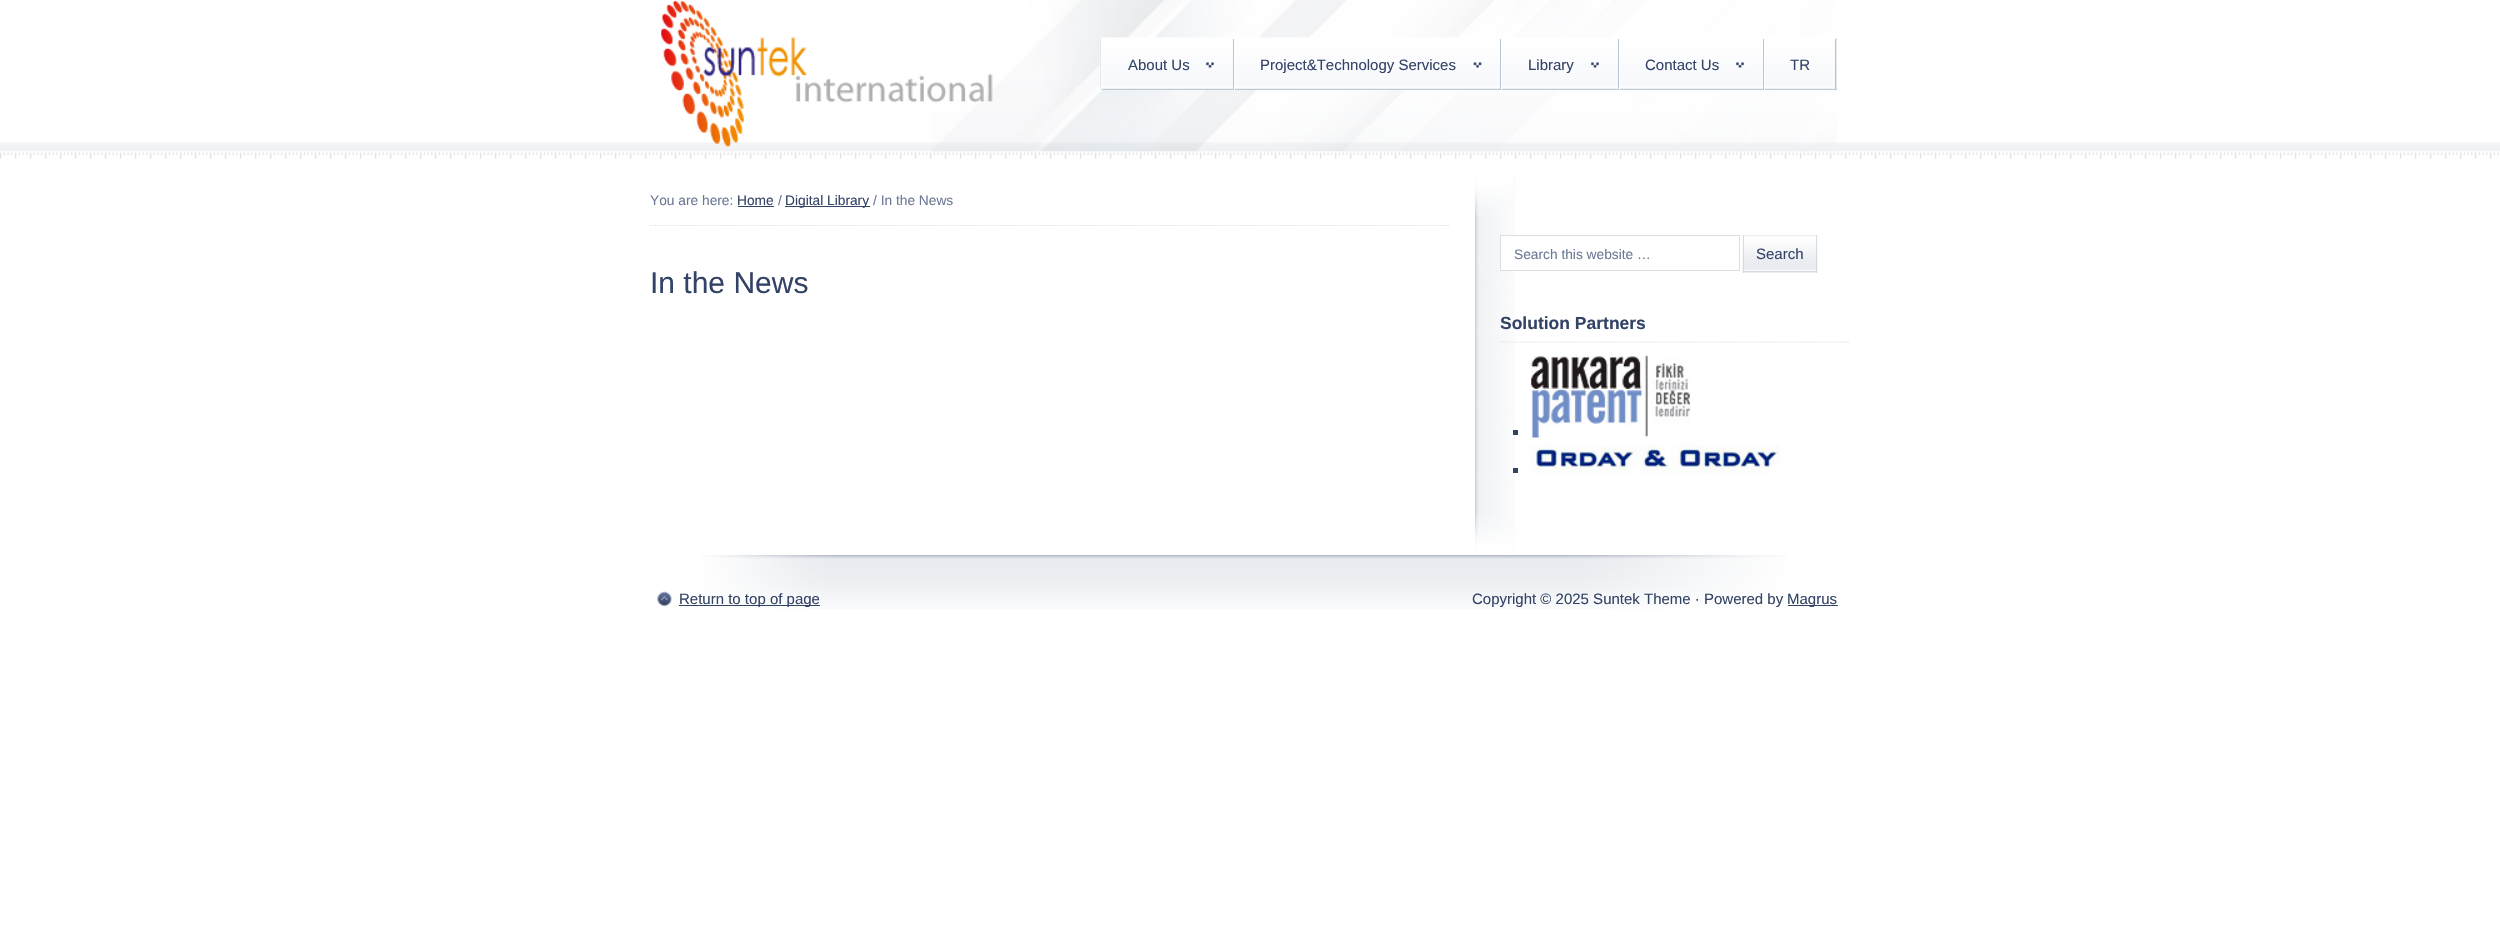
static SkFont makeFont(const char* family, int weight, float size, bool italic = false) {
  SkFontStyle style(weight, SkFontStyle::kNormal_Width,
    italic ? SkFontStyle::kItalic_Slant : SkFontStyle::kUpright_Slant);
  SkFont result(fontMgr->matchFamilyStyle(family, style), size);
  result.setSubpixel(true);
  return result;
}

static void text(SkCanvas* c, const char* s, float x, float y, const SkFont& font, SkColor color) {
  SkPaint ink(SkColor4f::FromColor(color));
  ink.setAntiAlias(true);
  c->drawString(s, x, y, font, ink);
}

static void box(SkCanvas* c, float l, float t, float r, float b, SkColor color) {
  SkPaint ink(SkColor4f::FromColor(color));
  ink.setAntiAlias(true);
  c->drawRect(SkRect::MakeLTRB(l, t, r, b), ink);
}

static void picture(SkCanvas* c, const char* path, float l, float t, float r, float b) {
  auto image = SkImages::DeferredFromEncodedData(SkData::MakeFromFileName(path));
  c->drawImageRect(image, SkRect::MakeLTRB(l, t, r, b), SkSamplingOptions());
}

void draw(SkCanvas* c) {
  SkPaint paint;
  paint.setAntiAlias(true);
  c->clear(0xffffffff);
  picture(c, "img_01.png", 0, 142, 2500, 159);
  picture(c, "img_02.png", 931, 0, 1837, 152);
  picture(c, "img_03.png", 661, 1, 993, 147);
  picture(c, "img_04.png", 1100, 37, 1838, 90);
  box(c, 1836, 38, 1837, 90, 0xffe4e9ed);
  box(c, 1100, 38, 1101, 90, 0xffe4e9ed);
  box(c, 1233, 39, 1234, 90, 0xffb8c6d1);
  box(c, 1101, 54, 1102, 90, 0xffffffff);
  SkFont face1 = makeFont("Liberation Sans", 400, 15);
  text(c, "About Us", 1128, 70, face1, 0xff334366);
  picture(c, "img_05.png", 1206, 62, 1215, 68);
  box(c, 1500, 39, 1501, 90, 0xffb8c6d1);
  box(c, 1234, 54, 1235, 90, 0xffffffff);
  text(c, "Project&Technology Services", 1260, 70, face1, 0xff334366);
  picture(c, "img_06.png", 1473, 62, 1482, 68);
  box(c, 1618, 39, 1619, 90, 0xffb8c6d1);
  box(c, 1501, 54, 1502, 90, 0xffffffff);
  text(c, "Library", 1528, 70, face1, 0xff334366);
  picture(c, "img_05.png", 1591, 62, 1600, 68);
  box(c, 1763, 39, 1764, 90, 0xffb8c6d1);
  box(c, 1619, 54, 1620, 90, 0xffffffff);
  text(c, "Contact Us", 1645, 70, face1, 0xff334366);
  picture(c, "img_05.png", 1736, 62, 1745, 68);
  box(c, 1835, 39, 1836, 90, 0xffb8c6d1);
  box(c, 1764, 54, 1765, 90, 0xffffffff);
  text(c, "TR", 1790, 70, face1, 0xff334366);
  paint.setStyle(SkPaint::kStroke_Style);
  paint.setStrokeWidth(1.2f);
  paint.setColor(0xffdbdee4);
  paint.setPathEffect(SkDashPathEffect::Make({{1.25f, 1.25f}}, 0));
  c->drawPath(SkPathBuilder().moveTo(650, 225.5f).lineTo(1450, 225.5f).detach(), paint);
  paint.setPathEffect(nullptr);
  SkFont face2 = makeFont("Liberation Sans", 400, 13.75f);
  text(c, "You are here:", 650, 205, face2, 0xff6c7996);
  text(c, "Home", 737, 205, face2, 0xff334366);
  box(c, 738, 206, 774, 207, 0xff334366);
  text(c, "/", 778, 205, face2, 0xff6c7996);
  box(c, 785, 206, 870, 207, 0xff334366);
  text(c, "Digital Library", 785, 205, face2, 0xff334366);
  text(c, "/ In the News", 873, 205, face2, 0xff6c7996);
  SkFont face3 = makeFont("Liberation Sans", 400, 30);
  text(c, "In the News", 650, 293, face3, 0xff334366);
  picture(c, "img_07.png", 1475, 175, 1515, 555);
  picture(c, "img_08.png", 1475, 175, 1513, 216);
  box(c, 1501, 236, 1515, 270, 0xffffffff);
  paint.setStrokeWidth(1);
  c->drawRect(SkRect::MakeLTRB(1500.5f, 235.5f, 1739.5f, 270.5f), paint);
  text(c, "Search this website …", 1514, 259, face2, 0xff6c7996);
  picture(c, "img_09.png", 1742, 235, 1818, 273);
  box(c, 1816, 235, 1817, 273, 0xffd4dbe1);
  box(c, 1743, 235, 1744, 273, 0xffd4dbe1);
  text(c, "Search", 1756, 259, face1, 0xff334366);
  paint.setStrokeWidth(1.2f);
  paint.setPathEffect(SkDashPathEffect::Make({{1.25f, 1.25f}}, 0));
  c->drawPath(SkPathBuilder().moveTo(1500, 342).lineTo(1850, 342).detach(), paint);
  paint.setPathEffect(nullptr);
  SkFont face4 = makeFont("Liberation Sans", 700, 17.5f);
  text(c, "Solution Partners", 1500, 329, face4, 0xff334366);
  box(c, 1513, 430, 1518, 435, 0xff334366);
  picture(c, "img_10.png", 1531, 355, 1690, 438);
  box(c, 1513, 468, 1518, 473, 0xff334366);
  picture(c, "img_11.png", 1531, 445, 1781, 475);
  picture(c, "img_12.png", 1475, 514, 1514, 555);
  picture(c, "img_13.png", 702, 555, 1786, 609);
  picture(c, "img_14.png", 657, 591, 672, 607);
  box(c, 679, 605, 820, 606, 0xff334366);
  text(c, "Return to top of page", 679, 604, face1, 0xff334366);
  text(c, "Copyright © 2025 Suntek Theme · Powered by", 1472, 604, face1, 0xff334366);
  box(c, 1788, 605, 1838, 606, 0xff334366);
  text(c, "Magrus", 1787, 604, face1, 0xff334366);
}
